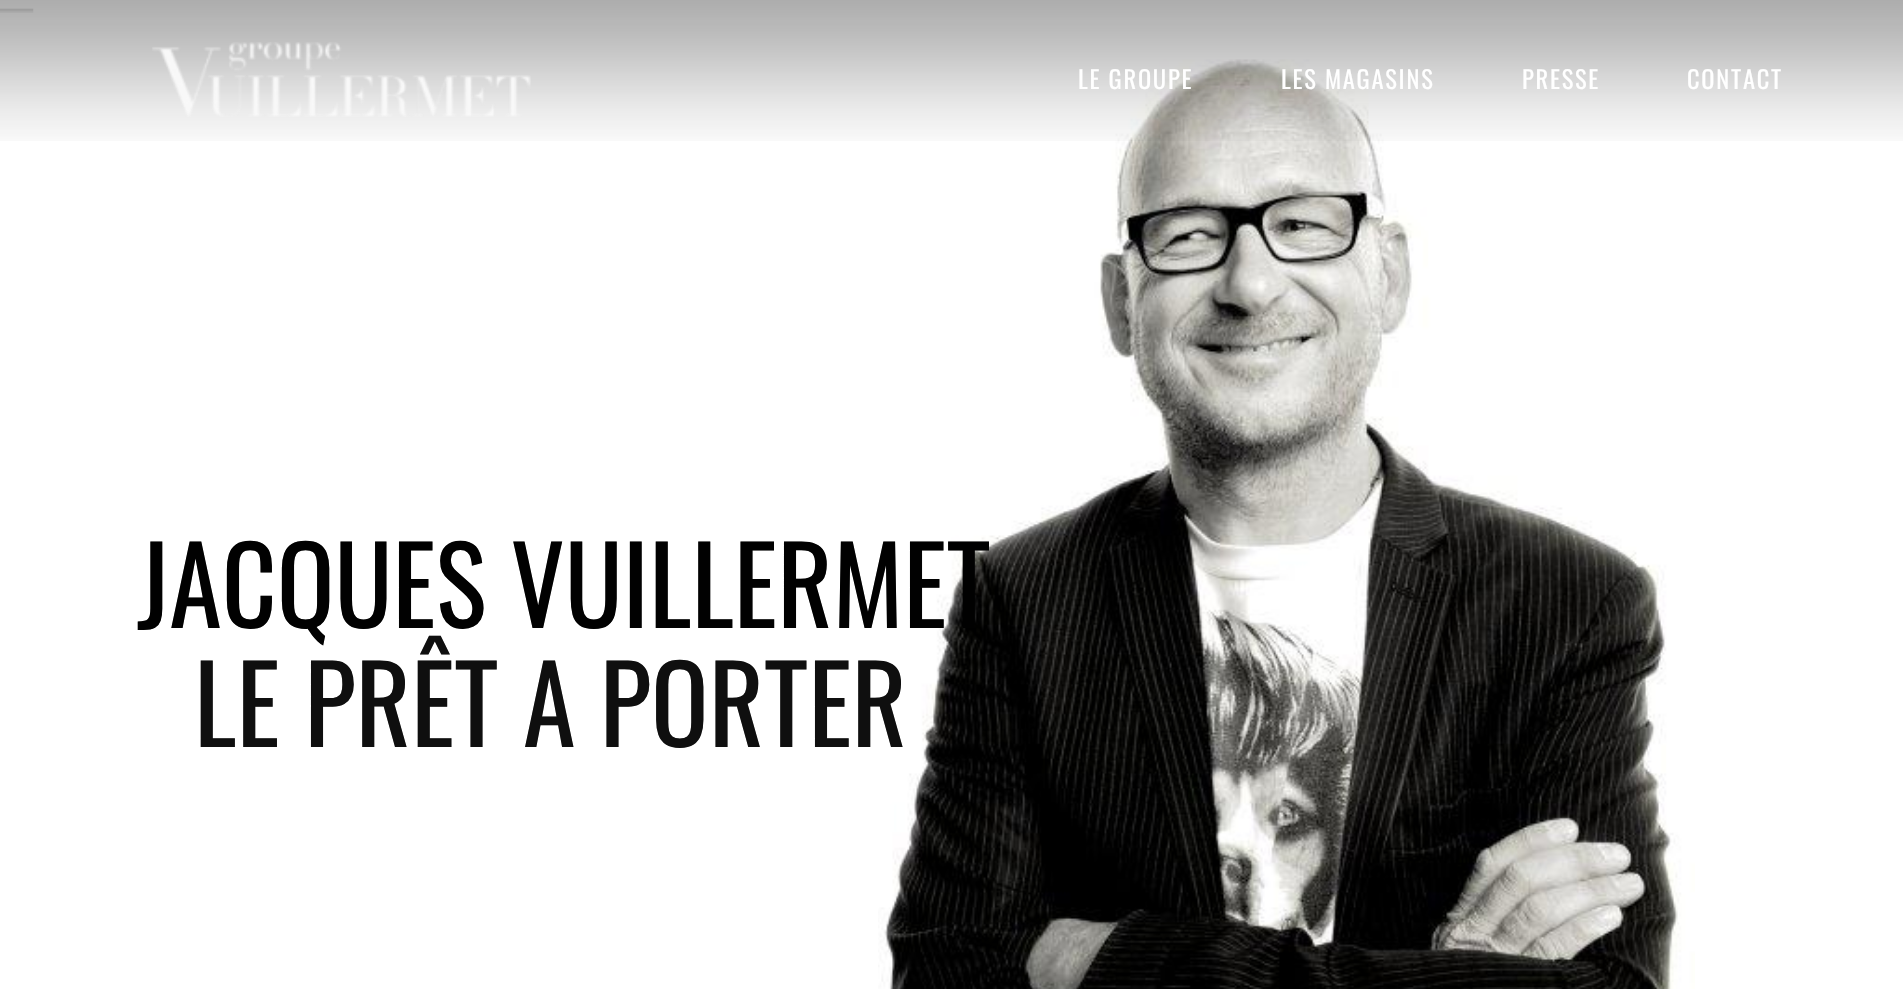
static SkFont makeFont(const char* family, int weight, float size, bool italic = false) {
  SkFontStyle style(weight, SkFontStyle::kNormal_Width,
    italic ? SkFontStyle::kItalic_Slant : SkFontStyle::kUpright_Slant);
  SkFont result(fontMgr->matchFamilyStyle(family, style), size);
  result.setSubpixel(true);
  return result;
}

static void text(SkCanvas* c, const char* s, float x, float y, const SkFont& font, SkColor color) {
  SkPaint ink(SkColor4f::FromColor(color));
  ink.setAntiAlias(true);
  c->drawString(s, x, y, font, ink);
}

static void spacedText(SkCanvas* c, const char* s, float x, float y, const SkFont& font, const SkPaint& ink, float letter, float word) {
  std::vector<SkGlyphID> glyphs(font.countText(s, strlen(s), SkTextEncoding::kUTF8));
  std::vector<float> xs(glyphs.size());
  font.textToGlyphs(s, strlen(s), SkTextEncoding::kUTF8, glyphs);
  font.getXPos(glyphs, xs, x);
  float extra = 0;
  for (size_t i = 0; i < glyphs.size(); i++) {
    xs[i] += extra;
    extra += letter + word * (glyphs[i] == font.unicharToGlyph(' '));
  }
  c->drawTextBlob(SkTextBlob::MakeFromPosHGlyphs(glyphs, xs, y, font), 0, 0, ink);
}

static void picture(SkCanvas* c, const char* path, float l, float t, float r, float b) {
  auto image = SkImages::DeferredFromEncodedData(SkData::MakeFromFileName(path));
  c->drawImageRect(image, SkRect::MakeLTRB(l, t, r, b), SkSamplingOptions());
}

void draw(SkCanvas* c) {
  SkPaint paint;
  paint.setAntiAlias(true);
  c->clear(0xffffffff);
  picture(c, "img_03.png", 0, 8, 34, 13);
  picture(c, "img_04.png", 878, 59, 1695, 989);
  picture(c, "img_01.png", 0, 0, 1903, 141);
  picture(c, "img_02.png", 152, 42, 531, 117);
  SkFont face1 = makeFont("Oswald", 400, 24.5f);
  paint.setColor(0xffffffff);
  spacedText(c, "LE GROUPE", 1078, 89, face1, paint, 1.75f, 0);
  spacedText(c, "LES MAGASINS", 1281, 89, face1, paint, 1.75f, 0);
  spacedText(c, "PRESSE", 1522, 89, face1, paint, 1.75f, 0);
  spacedText(c, "CONTACT", 1687, 89, face1, paint, 1.75f, 0);
  SkFont face2 = makeFont("Oswald", 400, 106.75f);
  text(c, "JACQUES VUILLERMET", 137, 628, face2, 0xff010101);
  text(c, "LE PRÊT A PORTER", 194, 747, face2, 0xff0f0f0f);
}
